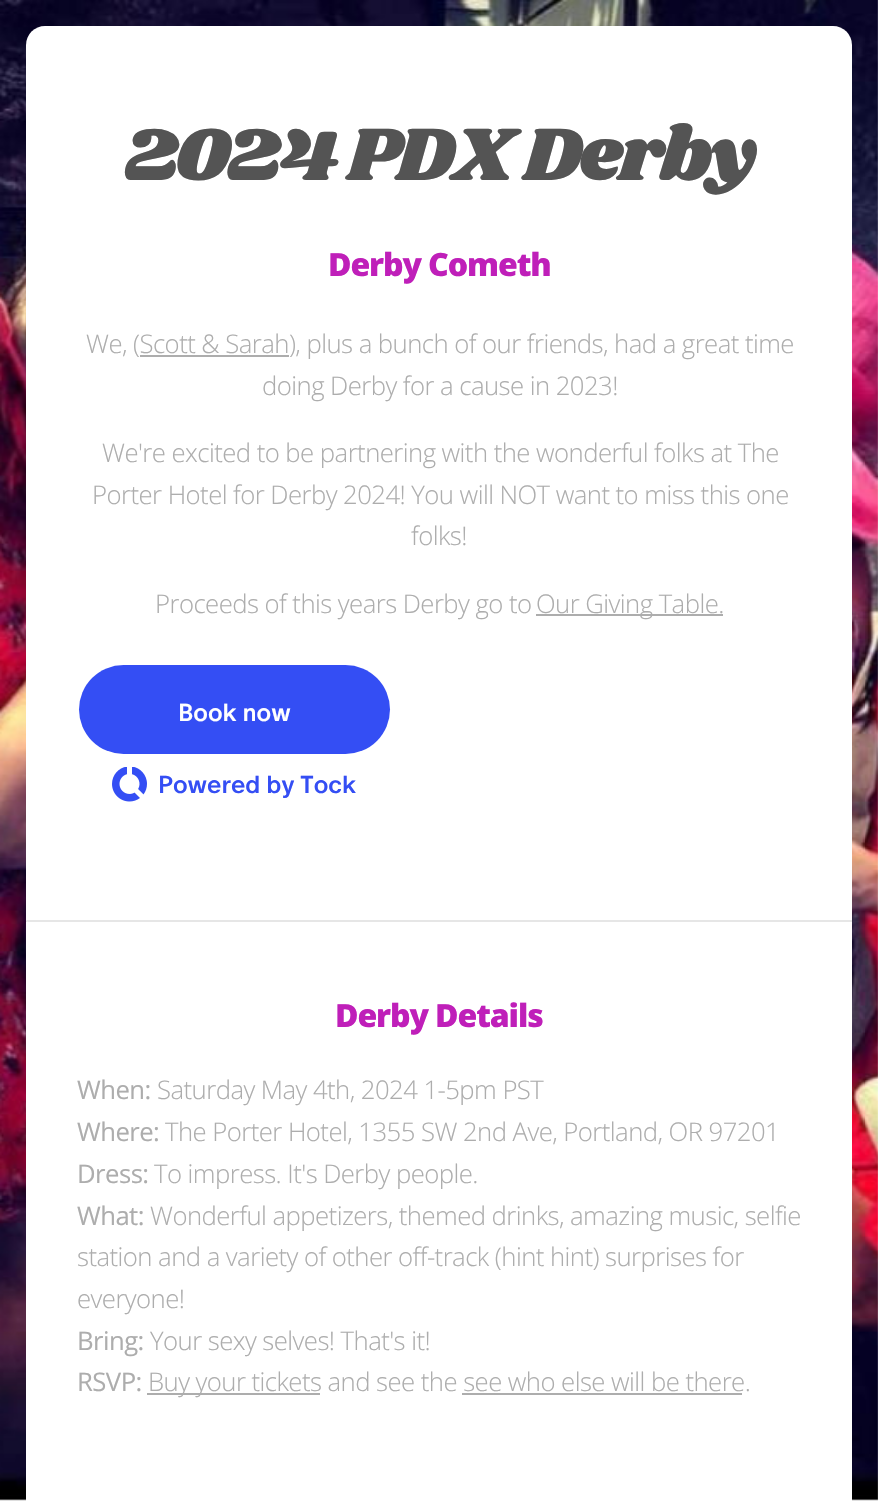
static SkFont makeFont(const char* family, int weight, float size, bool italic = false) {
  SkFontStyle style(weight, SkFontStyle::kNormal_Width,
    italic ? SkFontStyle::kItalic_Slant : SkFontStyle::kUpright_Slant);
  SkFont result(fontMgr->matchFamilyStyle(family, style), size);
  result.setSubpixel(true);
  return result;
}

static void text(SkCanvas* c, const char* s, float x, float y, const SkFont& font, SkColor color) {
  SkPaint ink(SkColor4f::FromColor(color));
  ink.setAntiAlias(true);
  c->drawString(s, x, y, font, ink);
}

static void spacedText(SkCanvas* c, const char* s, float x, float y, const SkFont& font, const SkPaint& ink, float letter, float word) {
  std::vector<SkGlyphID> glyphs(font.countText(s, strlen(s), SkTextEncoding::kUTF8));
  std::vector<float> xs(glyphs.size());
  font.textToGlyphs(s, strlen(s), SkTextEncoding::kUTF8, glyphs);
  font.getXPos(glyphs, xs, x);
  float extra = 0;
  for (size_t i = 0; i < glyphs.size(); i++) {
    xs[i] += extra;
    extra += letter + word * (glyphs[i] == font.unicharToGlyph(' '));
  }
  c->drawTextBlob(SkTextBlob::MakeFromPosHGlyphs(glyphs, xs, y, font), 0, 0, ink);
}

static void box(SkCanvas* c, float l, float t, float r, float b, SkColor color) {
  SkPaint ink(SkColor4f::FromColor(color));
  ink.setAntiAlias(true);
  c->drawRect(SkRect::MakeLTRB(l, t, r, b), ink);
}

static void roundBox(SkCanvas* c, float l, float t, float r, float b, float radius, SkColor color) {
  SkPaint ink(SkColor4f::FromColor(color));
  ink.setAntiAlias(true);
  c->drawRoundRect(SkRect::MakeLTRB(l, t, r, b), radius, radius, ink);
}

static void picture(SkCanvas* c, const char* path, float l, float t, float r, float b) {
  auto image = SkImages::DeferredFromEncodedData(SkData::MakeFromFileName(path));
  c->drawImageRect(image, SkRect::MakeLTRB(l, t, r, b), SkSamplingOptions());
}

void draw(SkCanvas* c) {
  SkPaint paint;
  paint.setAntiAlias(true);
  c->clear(0xffffffff);
  picture(c, "img_01.png", 0, 0, 878, 1501);
  roundBox(c, 26, 26, 852, 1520, 19, 0xffffffff);
  SkFont face1 = makeFont("Shrikhand", 400, 77);
  paint.setColor(0xff545454);
  spacedText(c, "2024 PDX Derby", 124, 180, face1, paint, -3.4f, 0);
  SkFont face2 = makeFont("Open Sans", 800, 32);
  paint.setColor(0xffbf1fb9);
  spacedText(c, "Derby Cometh", 328, 276, face2, paint, -1.1f, 0);
  SkFont face3 = makeFont("Open Sans", 300, 25.7f);
  paint.setColor(0xffadadad);
  spacedText(c, "We, (Scott & Sarah), plus a bunch of our friends, had a great time", 86, 353, face3, paint, -0.55f, 0);
  box(c, 140, 355, 289, 357, 0xffadadad);
  spacedText(c, "doing Derby for a cause in 2023!", 262, 395, face3, paint, -0.55f, 0);
  spacedText(c, "We're excited to be partnering with the wonderful folks at The", 102, 462, face3, paint, -0.55f, 0);
  spacedText(c, "Porter Hotel for Derby 2024! You will NOT want to miss this one", 92, 504, face3, paint, -0.55f, 0);
  spacedText(c, "folks!", 411, 545, face3, paint, -0.55f, 0);
  spacedText(c, "Proceeds of this years Derby go to", 155, 613, face3, paint, -0.55f, 0);
  box(c, 536, 614, 723, 616, 0xffadadad);
  spacedText(c, "Our Giving Table.", 536, 613, face3, paint, -0.55f, 0);
  roundBox(c, 79, 665, 390, 754, 44.5f, 0xff344ef4);
  SkFont face4 = makeFont("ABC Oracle", 500, 24.5f);
  text(c, "Book now", 178, 721, face4, 0xffffffff);
  picture(c, "img_02.png", 112, 767, 147, 802);
  text(c, "Powered by Tock", 158, 793, face4, 0xff344ef4);
  paint.setColor(0xffe6e6e6);
  c->drawPath(SkPathBuilder().moveTo(26, 920).lineTo(852, 920).lineTo(852, 922).lineTo(28, 922).close().detach(), paint);
  c->drawPath(SkPathBuilder().moveTo(26, 922).lineTo(26, 920.5f).lineTo(28, 922).close().detach(), paint);
  paint.setColor(0xffbf1fb9);
  spacedText(c, "Derby Details", 335, 1027, face2, paint, -1.1f, 0);
  SkFont face5 = makeFont("Open Sans", 400, 25.7f);
  paint.setColor(0xffadadad);
  spacedText(c, "When:", 77, 1099, face5, paint, -0.55f, 0);
  spacedText(c, "Saturday May 4th, 2024 1-5pm PST", 157, 1099, face3, paint, -0.55f, 0);
  spacedText(c, "Where:", 77, 1141, face5, paint, -0.55f, 0);
  spacedText(c, "The Porter Hotel, 1355 SW 2nd Ave, Portland, OR 97201", 165, 1141, face3, paint, -0.55f, 0);
  spacedText(c, "Dress:", 77, 1183, face5, paint, -0.55f, 0);
  spacedText(c, "To impress. It's Derby people.", 154, 1183, face3, paint, -0.55f, 0);
  spacedText(c, "What:", 77, 1225, face5, paint, -0.55f, 0);
  spacedText(c, "Wonderful appetizers, themed drinks, amazing music, selfie", 150, 1225, face3, paint, -0.55f, 0);
  spacedText(c, "station and a variety of other off-track (hint hint) surprises for", 77, 1266, face3, paint, -0.55f, 0);
  spacedText(c, "everyone!", 77, 1308, face3, paint, -0.55f, 0);
  spacedText(c, "Bring:", 77, 1350, face5, paint, -0.55f, 0);
  spacedText(c, "Your sexy selves! That's it!", 150, 1350, face3, paint, -0.55f, 0);
  spacedText(c, "RSVP:", 77, 1391, face5, paint, -0.55f, 0);
  box(c, 147, 1393, 320, 1395, 0xffadadad);
  spacedText(c, "Buy your tickets and see the see who else will be there.", 148, 1391, face3, paint, -0.55f, 0);
  box(c, 462, 1393, 742, 1395, 0xffadadad);
}
